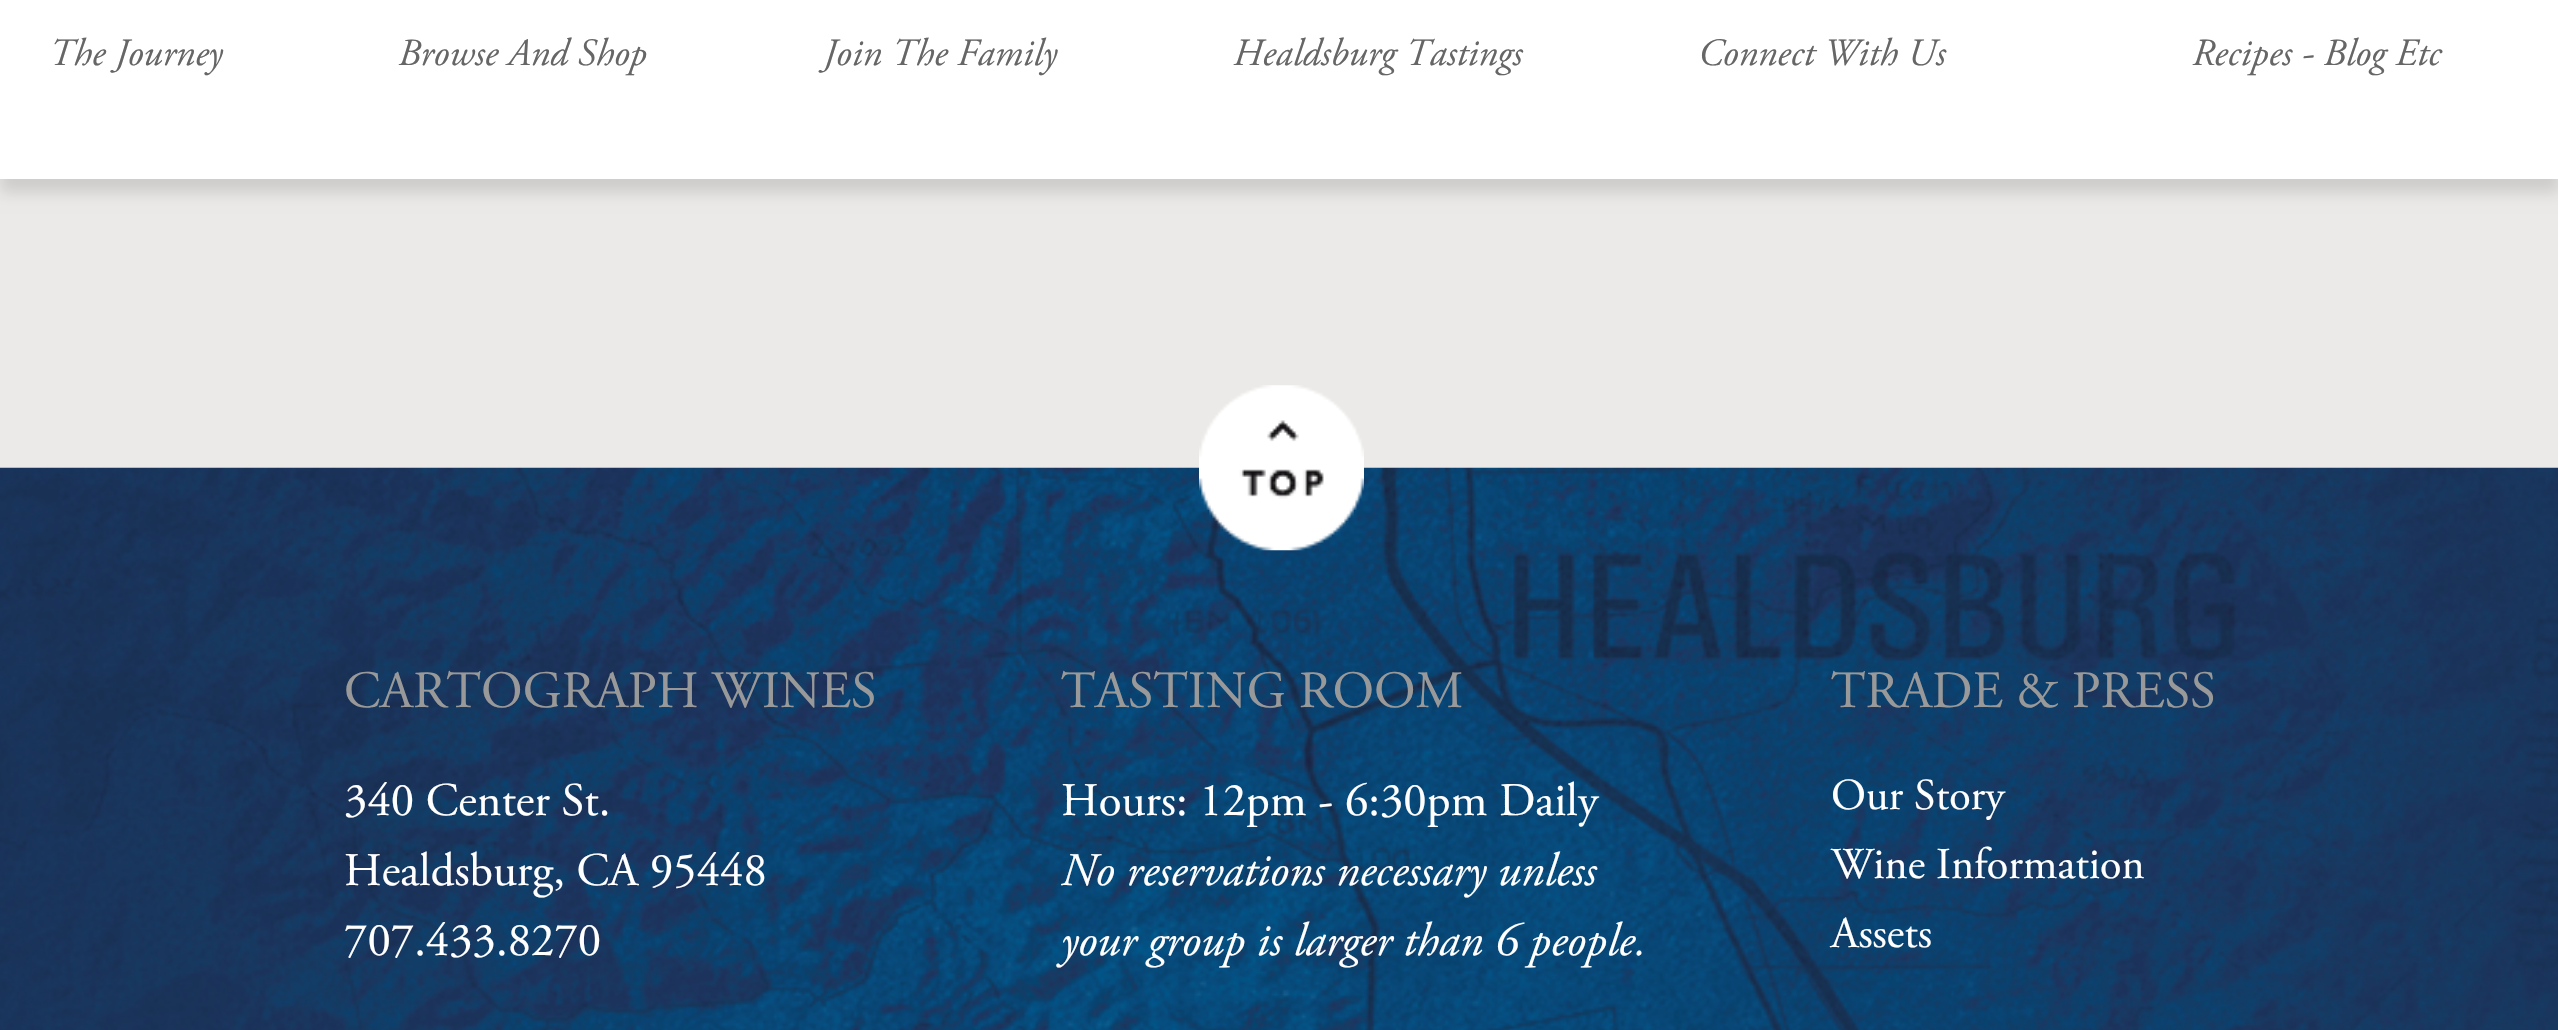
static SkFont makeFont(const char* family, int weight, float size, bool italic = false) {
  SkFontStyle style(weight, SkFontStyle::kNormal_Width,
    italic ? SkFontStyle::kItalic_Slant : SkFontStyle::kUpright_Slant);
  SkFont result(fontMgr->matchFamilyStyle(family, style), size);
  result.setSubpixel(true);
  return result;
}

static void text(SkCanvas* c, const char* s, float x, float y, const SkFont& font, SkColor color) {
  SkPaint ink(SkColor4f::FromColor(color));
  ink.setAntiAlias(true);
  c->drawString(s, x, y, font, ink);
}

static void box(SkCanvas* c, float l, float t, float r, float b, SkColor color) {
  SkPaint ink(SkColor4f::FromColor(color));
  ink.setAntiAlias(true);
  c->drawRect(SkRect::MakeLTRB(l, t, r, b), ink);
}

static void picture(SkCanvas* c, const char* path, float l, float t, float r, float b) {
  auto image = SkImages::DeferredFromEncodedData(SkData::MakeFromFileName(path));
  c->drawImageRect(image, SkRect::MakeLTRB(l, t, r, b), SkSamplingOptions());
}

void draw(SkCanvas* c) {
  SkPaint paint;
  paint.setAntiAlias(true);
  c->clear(0xffebeae8);
  paint.setColor(0x1f000000);
  paint.setMaskFilter(SkMaskFilter::MakeBlur(kNormal_SkBlurStyle, 7));
  c->drawRect(SkRect::MakeLTRB(0, -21, 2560, 193), paint);
  paint.setMaskFilter(nullptr);
  box(c, 0, 0, 2558, 179, 0xffffffff);
  SkFont face1 = makeFont("Adobe Garamond", 400, 38.5f, true);
  text(c, "The Journey", 49, 65, face1, 0xff666666);
  text(c, "Browse And Shop", 398, 65, face1, 0xff666666);
  text(c, "Join The Family", 823, 65, face1, 0xff666666);
  text(c, "Healdsburg Tastings", 1233, 65, face1, 0xff666666);
  text(c, "Connect With Us", 1698, 65, face1, 0xff666666);
  text(c, "Recipes - Blog Etc", 2192, 65, face1, 0xff666666);
  picture(c, "img_01.png", 0, 467, 2558, 1030);
  picture(c, "img_02.png", 1199, 385, 1364, 551);
  SkFont face2 = makeFont("Adobe Garamond", 400, 52.25f);
  text(c, "CARTOGRAPH WINES", 344, 707, face2, 0xff999999);
  SkFont face3 = makeFont("Adobe Garamond", 400, 46.75f);
  text(c, "340 Center St.", 344, 815, face3, 0xffffffff);
  text(c, "Healdsburg, CA 95448", 344, 885, face3, 0xffffffff);
  text(c, "707.433.8270", 344, 955, face3, 0xffffffff);
  text(c, "TASTING ROOM", 1061, 707, face2, 0xff999999);
  text(c, "Hours: 12pm - 6:30pm Daily", 1061, 815, face3, 0xffffffff);
  SkFont face4 = makeFont("Adobe Garamond", 400, 46.75f, true);
  text(c, "No reservations necessary unless", 1061, 885, face4, 0xffffffff);
  text(c, "your group is larger than 6 people.", 1061, 955, face4, 0xffffffff);
  text(c, "TRADE & PRESS", 1831, 707, face2, 0xff999999);
  SkFont face5 = makeFont("Adobe Garamond", 400, 44);
  text(c, "Our Story", 1831, 809, face5, 0xffffffff);
  text(c, "Wine Information", 1831, 878, face5, 0xffffffff);
  text(c, "Assets", 1831, 947, face5, 0xffffffff);
}
